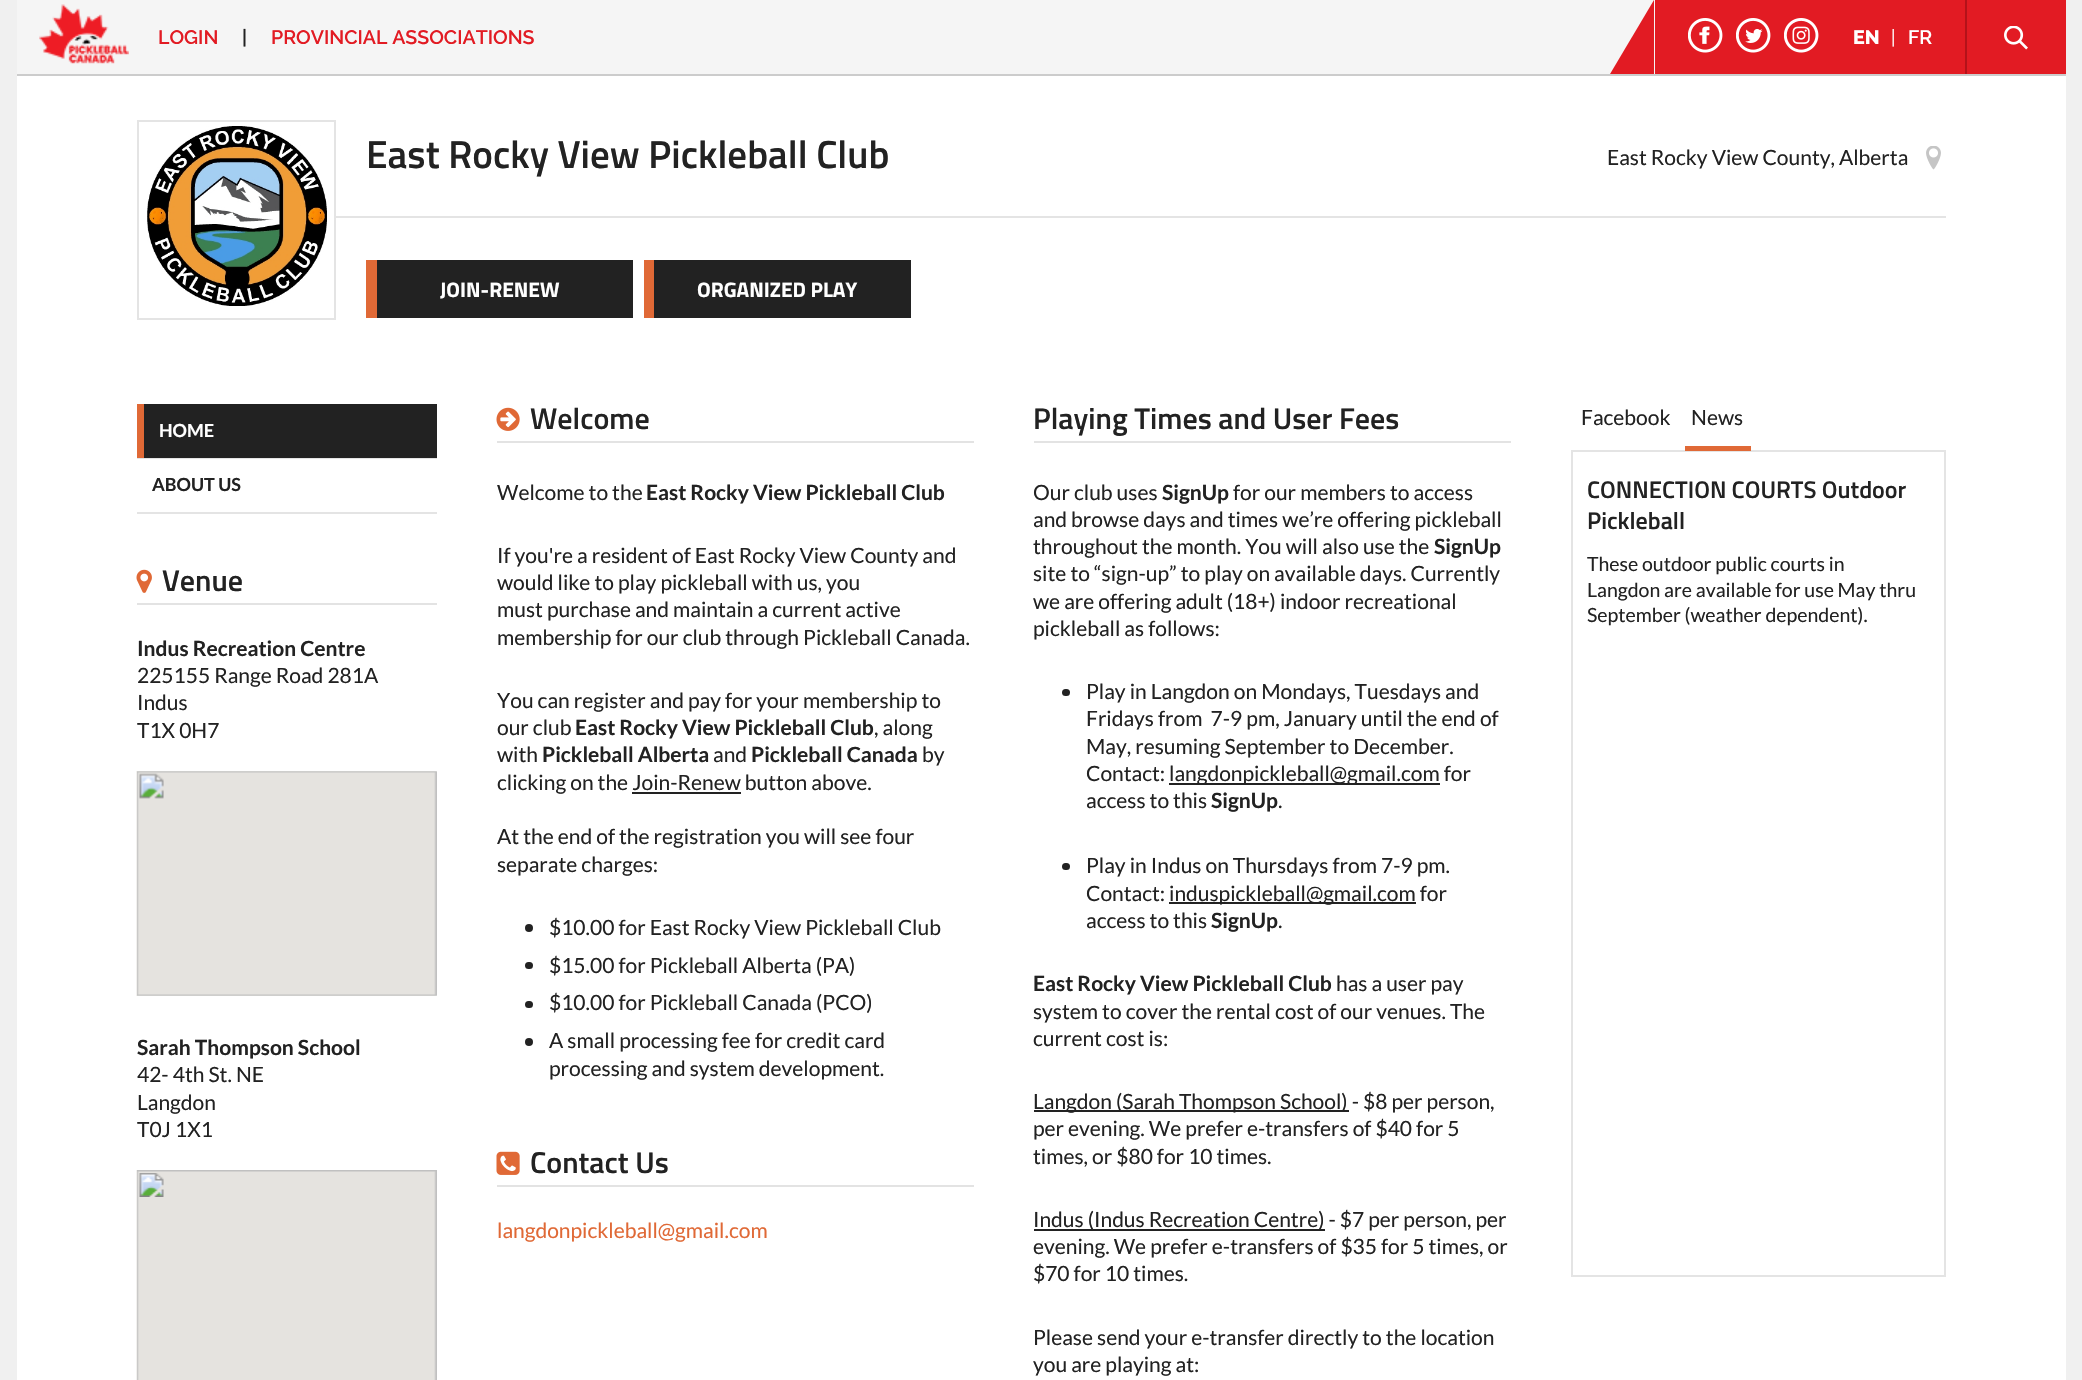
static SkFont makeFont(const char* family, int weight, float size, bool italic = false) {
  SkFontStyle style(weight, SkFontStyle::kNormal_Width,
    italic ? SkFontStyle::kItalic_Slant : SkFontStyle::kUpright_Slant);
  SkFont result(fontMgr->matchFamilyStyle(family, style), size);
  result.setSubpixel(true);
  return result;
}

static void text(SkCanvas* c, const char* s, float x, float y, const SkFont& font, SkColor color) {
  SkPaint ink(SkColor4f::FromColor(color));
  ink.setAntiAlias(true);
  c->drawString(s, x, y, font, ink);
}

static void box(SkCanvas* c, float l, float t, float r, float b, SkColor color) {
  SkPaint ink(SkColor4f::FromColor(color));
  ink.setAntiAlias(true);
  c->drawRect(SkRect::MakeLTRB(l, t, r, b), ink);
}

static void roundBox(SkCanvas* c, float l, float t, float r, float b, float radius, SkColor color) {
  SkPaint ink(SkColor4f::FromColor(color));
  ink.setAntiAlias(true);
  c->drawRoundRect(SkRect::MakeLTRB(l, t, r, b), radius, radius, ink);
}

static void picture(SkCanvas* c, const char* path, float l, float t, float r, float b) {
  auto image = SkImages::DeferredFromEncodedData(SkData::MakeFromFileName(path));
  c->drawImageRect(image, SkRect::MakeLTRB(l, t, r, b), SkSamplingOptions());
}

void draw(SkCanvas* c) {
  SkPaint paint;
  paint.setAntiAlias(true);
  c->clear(0xfff0f0f0);
  box(c, 17, 76, 2066, 1380, 0xffffffff);
  box(c, 17, 0, 1655, 74, 0xfff5f5f5);
  box(c, 17, 74, 2066, 76, 0xffcccccc);
  picture(c, "img_01.png", 39, 4, 129, 64);
  SkFont face1 = makeFont("Raleway", 600, 19.5f);
  text(c, "LOGIN", 158, 44, face1, 0xffe21b23);
  text(c, "|", 242, 44, face1, 0xff222222);
  text(c, "PROVINCIAL ASSOCIATIONS", 271, 44, face1, 0xffe21b23);
  box(c, 1655, 0, 2066, 74, 0xffe21b23);
  paint.setColor(0xffe21b23);
  c->drawPath(SkPathBuilder().moveTo(1654, 0).lineTo(1654, 74).lineTo(1610, 74).close().detach(), paint);
  picture(c, "img_02.png", 1688, 18, 1723, 53);
  picture(c, "img_03.png", 1736, 18, 1771, 53);
  picture(c, "img_04.png", 1784, 18, 1819, 53);
  SkFont face2 = makeFont("Raleway", 800, 19.5f);
  text(c, "EN", 1853, 44, face2, 0xffffffff);
  SkFont face3 = makeFont("Raleway", 400, 19.5f);
  text(c, "|", 1891, 44, face3, 0xffffffff);
  text(c, "FR", 1908, 44, face1, 0xffffffff);
  box(c, 1965, 0, 1967, 74, 0xffb4121a);
  picture(c, "img_05.png", 2004, 26, 2028, 50);
  paint.setStyle(SkPaint::kStroke_Style);
  paint.setStrokeWidth(2);
  paint.setColor(0xffe4e4e4);
  c->drawRect(SkRect::MakeLTRB(138, 121, 335, 319), paint);
  picture(c, "img_06.png", 147, 126, 327, 306);
  box(c, 336, 216, 1946, 218, 0xffe4e4e4);
  SkFont face4 = makeFont("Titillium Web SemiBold", 600, 39);
  text(c, "East Rocky View Pickleball Club", 366, 168, face4, 0xff222222);
  picture(c, "img_07.png", 1926, 146, 1941, 170);
  SkFont face5 = makeFont("Lato", 400, 21);
  text(c, "East Rocky View County, Alberta", 1607, 165, face5, 0xff222222);
  box(c, 377, 260, 633, 318, 0xff222222);
  box(c, 366, 260, 377, 318, 0xffe06936);
  SkFont face6 = makeFont("Titillium Web", 700, 21);
  text(c, "JOIN-RENEW", 440, 297, face6, 0xffffffff);
  box(c, 654, 260, 911, 318, 0xff222222);
  box(c, 644, 260, 654, 318, 0xffe06936);
  text(c, "ORGANIZED PLAY", 697, 297, face6, 0xffffffff);
  box(c, 497, 441, 974, 443, 0xffe3e3e3);
  picture(c, "img_08.png", 496, 407, 520, 431);
  SkFont face7 = makeFont("Titillium Web SemiBold", 600, 30);
  text(c, "Welcome", 530, 429, face7, 0xff222222);
  text(c, "Welcome to the", 497, 500, face5, 0xff222222);
  SkFont face8 = makeFont("Lato", 700, 21);
  text(c, "East Rocky View Pickleball Club", 646, 500, face8, 0xff222222);
  text(c, "If you're a resident of East Rocky View County and", 497, 563, face5, 0xff222222);
  text(c, "would like to play pickleball with us, you", 497, 590, face5, 0xff222222);
  text(c, "must purchase and maintain a current active", 497, 617, face5, 0xff222222);
  text(c, "membership for our club through Pickleball Canada.", 497, 645, face5, 0xff222222);
  text(c, "You can register and pay for your membership to", 497, 708, face5, 0xff222222);
  text(c, "our club", 497, 735, face5, 0xff222222);
  text(c, "East Rocky View Pickleball Club", 575, 735, face8, 0xff222222);
  text(c, ", along", 874, 735, face5, 0xff222222);
  text(c, "with", 497, 762, face5, 0xff222222);
  text(c, "Pickleball Alberta", 542, 762, face8, 0xff222222);
  text(c, "and", 713, 762, face5, 0xff222222);
  text(c, "Pickleball Canada", 751, 762, face8, 0xff222222);
  text(c, "by", 922, 762, face5, 0xff222222);
  text(c, "clicking on the Join-Renew button above.", 497, 790, face5, 0xff222222);
  box(c, 632, 792, 741, 794, 0xff222222);
  text(c, "At the end of the registration you will see four", 497, 844, face5, 0xff222222);
  text(c, "separate charges:", 497, 872, face5, 0xff222222);
  paint.setStyle(SkPaint::kFill_Style);
  paint.setColor(0xff222222);
  c->drawCircle(529, 928, 4, paint);
  text(c, "$10.00 for East Rocky View Pickleball Club", 549, 935, face5, 0xff222222);
  roundBox(c, 525, 962, 533, 969, 3.5f, 0xff222222);
  text(c, "$15.00 for Pickleball Alberta (PA)", 549, 973, face5, 0xff222222);
  roundBox(c, 525, 1001, 533, 1008, 3.5f, 0xff222222);
  text(c, "$10.00 for Pickleball Canada (PCO)", 549, 1010, face5, 0xff222222);
  c->drawCircle(529, 1042, 4, paint);
  text(c, "A small processing fee for credit card", 549, 1048, face5, 0xff222222);
  text(c, "processing and system development.", 549, 1076, face5, 0xff222222);
  box(c, 497, 1185, 974, 1187, 0xffe3e3e3);
  picture(c, "img_09.png", 496, 1151, 520, 1175);
  text(c, "Contact Us", 530, 1173, face7, 0xff222222);
  text(c, "langdonpickleball@gmail.com", 497, 1238, face5, 0xffe06936);
  box(c, 1034, 441, 1511, 443, 0xffe3e3e3);
  text(c, "Playing Times and User Fees", 1033, 429, face7, 0xff222222);
  text(c, "Our club uses", 1033, 500, face5, 0xff222222);
  text(c, "SignUp", 1162, 500, face8, 0xff222222);
  text(c, "for our members to access", 1233, 500, face5, 0xff222222);
  text(c, "and browse days and times we’re offering pickleball", 1033, 527, face5, 0xff222222);
  text(c, "throughout the month. You will also use the", 1033, 554, face5, 0xff222222);
  text(c, "SignUp", 1434, 554, face8, 0xff222222);
  text(c, "site to “sign-up” to play on available days. Currently", 1033, 581, face5, 0xff222222);
  text(c, "we are offering adult (18+) indoor recreational", 1033, 609, face5, 0xff222222);
  text(c, "pickleball as follows:", 1033, 636, face5, 0xff222222);
  roundBox(c, 1062, 689, 1070, 696, 3.5f, 0xff222222);
  text(c, "Play in Langdon on Mondays, Tuesdays and", 1086, 699, face5, 0xff222222);
  text(c, "Fridays from  7-9 pm, January until the end of", 1086, 726, face5, 0xff222222);
  text(c, "May, resuming September to December.", 1086, 754, face5, 0xff222222);
  text(c, "Contact:", 1086, 781, face5, 0xff222222);
  box(c, 1169, 783, 1440, 785, 0xff222222);
  text(c, "langdonpickleball@gmail.com for", 1169, 781, face5, 0xff222222);
  text(c, "access to this", 1086, 808, face5, 0xff222222);
  text(c, "SignUp", 1211, 808, face8, 0xff222222);
  text(c, ".", 1278, 808, face5, 0xff222222);
  roundBox(c, 1062, 863, 1070, 870, 3.5f, 0xff222222);
  text(c, "Play in Indus on Thursdays from 7-9 pm.", 1086, 873, face5, 0xff222222);
  text(c, "Contact:", 1086, 901, face5, 0xff222222);
  box(c, 1169, 902, 1416, 904, 0xff222222);
  text(c, "induspickleball@gmail.com for", 1169, 901, face5, 0xff222222);
  text(c, "access to this", 1086, 928, face5, 0xff222222);
  text(c, "SignUp", 1211, 928, face8, 0xff222222);
  text(c, ".", 1278, 928, face5, 0xff222222);
  text(c, "East Rocky View Pickleball Club", 1033, 991, face8, 0xff222222);
  text(c, "has a user pay", 1336, 991, face5, 0xff222222);
  text(c, "system to cover the rental cost of our venues. The", 1033, 1019, face5, 0xff222222);
  text(c, "current cost is:", 1033, 1046, face5, 0xff222222);
  box(c, 1034, 1110, 1349, 1112, 0xff222222);
  text(c, "Langdon (Sarah Thompson School) - $8 per person,", 1033, 1109, face5, 0xff222222);
  text(c, "per evening. We prefer e-transfers of $40 for 5", 1033, 1136, face5, 0xff222222);
  text(c, "times, or $80 for 10 times.", 1033, 1164, face5, 0xff222222);
  box(c, 1034, 1229, 1325, 1231, 0xff222222);
  text(c, "Indus (Indus Recreation Centre) - $7 per person, per", 1033, 1227, face5, 0xff222222);
  text(c, "evening. We prefer e-transfers of $35 for 5 times, or", 1033, 1254, face5, 0xff222222);
  text(c, "$70 for 10 times.", 1033, 1281, face5, 0xff222222);
  text(c, "Please send your e-transfer directly to the location", 1033, 1345, face5, 0xff222222);
  text(c, "you are playing at:", 1033, 1372, face5, 0xff222222);
  box(c, 137, 458, 437, 459, 0xffe4e4e4);
  box(c, 144, 404, 437, 458, 0xff222222);
  box(c, 137, 404, 144, 458, 0xffe06936);
  SkFont face9 = makeFont("Lato", 700, 18);
  text(c, "HOME", 159, 437, face9, 0xffffffff);
  box(c, 137, 512, 437, 514, 0xffe4e4e4);
  text(c, "ABOUT US", 152, 491, face9, 0xff222222);
  box(c, 137, 603, 437, 605, 0xffe3e3e3);
  picture(c, "img_10.png", 136, 569, 152, 593);
  text(c, "Venue", 162, 591, face7, 0xff222222);
  text(c, "Indus Recreation Centre", 137, 656, face8, 0xff222222);
  text(c, "225155 Range Road 281A", 137, 683, face5, 0xff222222);
  text(c, "Indus", 137, 710, face5, 0xff222222);
  text(c, "T1X 0H7", 137, 738, face5, 0xff222222);
  picture(c, "img_11.png", 136, 771, 437, 996);
  text(c, "Sarah Thompson School", 137, 1055, face8, 0xff222222);
  text(c, "42- 4th St. NE", 137, 1082, face5, 0xff222222);
  text(c, "Langdon", 137, 1110, face5, 0xff222222);
  text(c, "T0J 1X1", 137, 1137, face5, 0xff222222);
  picture(c, "img_12.png", 136, 1170, 437, 1380);
  box(c, 1571, 450, 1946, 452, 0xffe4e4e4);
  text(c, "Facebook", 1581, 425, face5, 0xff222222);
  box(c, 1685, 446, 1751, 451, 0xffe06936);
  text(c, "News", 1691, 425, face5, 0xff222222);
  box(c, 1944, 452, 1946, 1277, 0xffe4e4e4);
  box(c, 1571, 1275, 1946, 1277, 0xffe4e4e4);
  box(c, 1571, 452, 1573, 1277, 0xffe4e4e4);
  SkFont face10 = makeFont("Titillium Web SemiBold", 600, 24);
  text(c, "CONNECTION COURTS Outdoor", 1587, 498, face10, 0xff222222);
  text(c, "Pickleball", 1587, 529, face10, 0xff222222);
  SkFont face11 = makeFont("Lato", 400, 19.5f);
  text(c, "These outdoor public courts in", 1587, 571, face11, 0xff222222);
  text(c, "Langdon are available for use May thru", 1587, 597, face11, 0xff222222);
  text(c, "September (weather dependent).", 1587, 622, face11, 0xff222222);
}
